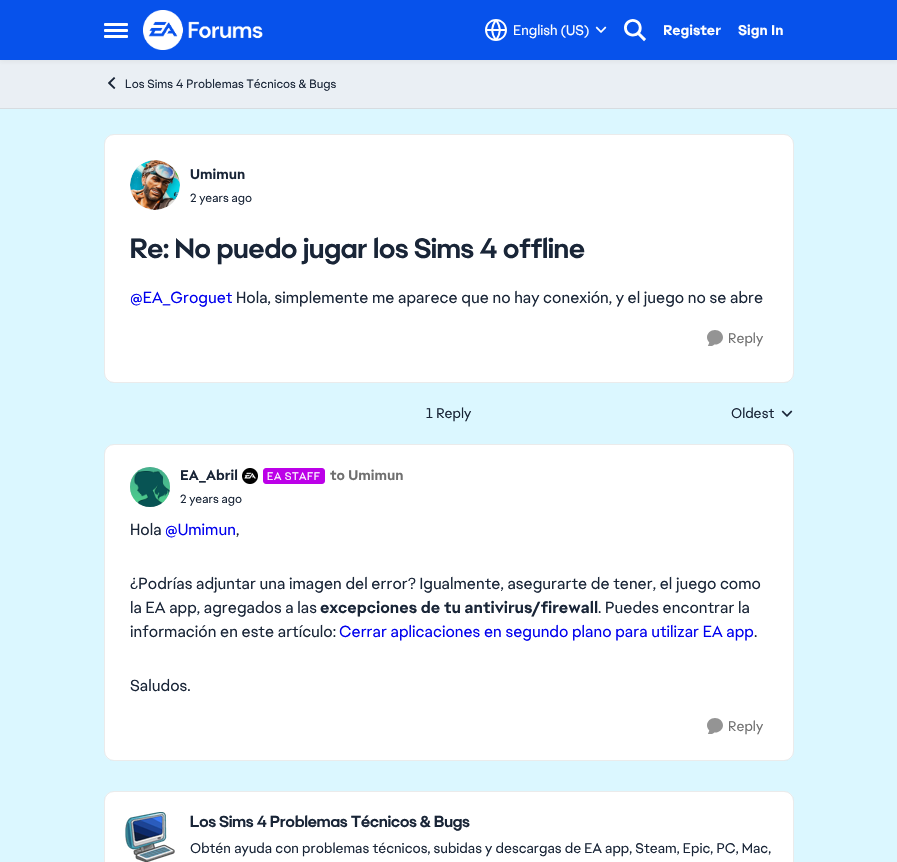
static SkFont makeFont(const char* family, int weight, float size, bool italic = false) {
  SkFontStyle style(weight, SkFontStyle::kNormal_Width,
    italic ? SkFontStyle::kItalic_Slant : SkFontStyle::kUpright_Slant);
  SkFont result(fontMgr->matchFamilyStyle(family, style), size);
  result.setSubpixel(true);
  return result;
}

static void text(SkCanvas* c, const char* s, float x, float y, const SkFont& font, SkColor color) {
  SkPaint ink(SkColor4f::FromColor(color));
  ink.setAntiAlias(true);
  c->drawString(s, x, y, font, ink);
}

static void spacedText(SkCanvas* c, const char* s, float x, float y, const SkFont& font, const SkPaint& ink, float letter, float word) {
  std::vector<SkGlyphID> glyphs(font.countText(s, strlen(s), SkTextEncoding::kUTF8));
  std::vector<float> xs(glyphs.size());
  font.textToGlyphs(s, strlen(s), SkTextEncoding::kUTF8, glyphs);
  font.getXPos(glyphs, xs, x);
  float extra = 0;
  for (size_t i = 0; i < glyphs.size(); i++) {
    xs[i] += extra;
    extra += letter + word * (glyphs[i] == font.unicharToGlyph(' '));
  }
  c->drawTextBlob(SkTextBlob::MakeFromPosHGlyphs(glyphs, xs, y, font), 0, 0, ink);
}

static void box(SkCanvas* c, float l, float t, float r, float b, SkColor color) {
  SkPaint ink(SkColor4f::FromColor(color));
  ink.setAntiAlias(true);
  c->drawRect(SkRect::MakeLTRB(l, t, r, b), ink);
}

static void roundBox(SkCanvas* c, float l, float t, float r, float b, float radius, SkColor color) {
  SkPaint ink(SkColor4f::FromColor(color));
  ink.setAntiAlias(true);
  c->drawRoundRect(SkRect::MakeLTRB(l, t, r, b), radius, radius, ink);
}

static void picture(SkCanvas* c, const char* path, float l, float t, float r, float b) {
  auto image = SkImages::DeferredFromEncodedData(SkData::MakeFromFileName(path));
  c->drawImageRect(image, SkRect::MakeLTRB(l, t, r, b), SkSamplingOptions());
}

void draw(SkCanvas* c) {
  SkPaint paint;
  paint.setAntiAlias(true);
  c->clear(0xffeaeff4);
  paint.setColor(0x0f333333);
  paint.setMaskFilter(SkMaskFilter::MakeBlur(kNormal_SkBlurStyle, 2));
  c->drawRect(SkRect::MakeLTRB(0, 2, 897, 62), paint);
  paint.setMaskFilter(nullptr);
  box(c, 0, 0, 897, 60, 0xff0752eb);
  roundBox(c, 104, 23, 128, 26, 1, 0xffffffff);
  roundBox(c, 104, 29, 128, 32, 1, 0xffffffff);
  roundBox(c, 104, 35, 128, 38, 1, 0xffffffff);
  picture(c, "img_01.png", 143, 10, 263, 50);
  picture(c, "img_02.png", 485, 19, 507, 41);
  SkFont face1 = makeFont("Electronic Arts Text", 400, 14);
  text(c, "English (US)", 513, 35, face1, 0xffffffff);
  picture(c, "img_03.png", 595, 26, 607, 33);
  picture(c, "img_04.png", 624, 19, 646, 42);
  SkFont face2 = makeFont("Electronic Arts Text", 700, 14);
  text(c, "Register", 663, 35, face2, 0xffffffff);
  text(c, "Sign In", 738, 35, face2, 0xffffffff);
  box(c, 0, 108, 897, 109, 0xffd7dce0);
  picture(c, "img_05.png", 108, 77, 116, 89);
  SkFont face3 = makeFont("Electronic Arts Text", 400, 12);
  text(c, "Los Sims 4 Problemas Técnicos & Bugs", 125, 88, face3, 0xff192537);
  box(c, 0, 109, 897, 862, 0xffdbf7ff);
  roundBox(c, 104, 134, 794, 383, 10, 0xffffffff);
  paint.setStyle(SkPaint::kStroke_Style);
  paint.setStrokeWidth(1);
  paint.setColor(0x14000000);
  c->drawRoundRect(SkRect::MakeLTRB(104.5f, 134.5f, 793.5f, 382.5f), 9.5f, 9.5f, paint);
  paint.setStyle(SkPaint::kFill_Style);
  paint.setColor(0xffd9d9d9);
  c->drawCircle(155, 185, 25, paint);
  picture(c, "img_06.png", 130, 160, 180, 210);
  text(c, "Umimun", 190, 179, face2, 0xff192537);
  text(c, "2 years ago", 190, 202, face3, 0xff192537);
  SkFont face4 = makeFont("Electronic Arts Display", 700, 28);
  text(c, "Re: No puedo jugar los Sims 4 offline", 130, 258, face4, 0xff192537);
  SkFont face5 = makeFont("Electronic Arts Text", 400, 16);
  text(c, "@EA_Groguet", 130, 303, face5, 0xff0000ee);
  text(c, "Hola, simplemente me aparece que no hay conexión, y el juego no se abre", 236, 303, face5, 0xff192537);
  picture(c, "img_07.png", 707, 330, 723, 346);
  text(c, "Reply", 728, 343, face1, 0xff707070);
  text(c, "1 Reply", 426, 418, face1, 0xff192537);
  text(c, "Oldest", 731, 418, face1, 0xff192537);
  picture(c, "img_08.png", 781, 410, 793, 417);
  roundBox(c, 104, 444, 794, 761, 10, 0xffffffff);
  paint.setStyle(SkPaint::kStroke_Style);
  paint.setColor(0x14000000);
  c->drawRoundRect(SkRect::MakeLTRB(104.5f, 444.5f, 793.5f, 760.5f), 9.5f, 9.5f, paint);
  paint.setStyle(SkPaint::kFill_Style);
  paint.setColor(0xffd9d9d9);
  c->drawCircle(150, 487, 20, paint);
  picture(c, "img_09.png", 130, 467, 170, 507);
  text(c, "EA_Abril", 180, 480, face2, 0xff192537);
  picture(c, "img_10.png", 242, 468, 258, 484);
  paint.setColor(0xffbc00e8);
  c->drawRoundRect(SkRect::MakeLTRB(263.5f, 468.5f, 324.5f, 483.5f), 2.5f, 2.5f, paint);
  paint.setStyle(SkPaint::kStroke_Style);
  c->drawRoundRect(SkRect::MakeLTRB(263.5f, 468.5f, 324.5f, 483.5f), 2.5f, 2.5f, paint);
  SkFont face6 = makeFont("Electronic Arts Text", 400, 11);
  paint.setStyle(SkPaint::kFill_Style);
  paint.setColor(0xffffffff);
  spacedText(c, "EA STAFF", 267, 480, face6, paint, 0.5f, 0);
  text(c, "to Umimun", 330, 480, face2, 0xff707070);
  text(c, "2 years ago", 180, 503, face3, 0xff192537);
  text(c, "Hola", 130, 535, face5, 0xff192537);
  text(c, "@Umimun", 165, 535, face5, 0xff0000ee);
  text(c, ",", 236, 535, face5, 0xff192537);
  text(c, "¿Podrías adjuntar una imagen del error? Igualmente, asegurarte de tener, el juego como", 130, 589, face5, 0xff192537);
  text(c, "la EA app, agregados a las", 130, 613, face5, 0xff192537);
  SkFont face7 = makeFont("Electronic Arts Text", 700, 16);
  text(c, "excepciones de tu antivirus/firewall", 320, 613, face7, 0xff192537);
  text(c, ". Puedes encontrar la", 598, 613, face5, 0xff192537);
  text(c, "información en este artículo:", 130, 637, face5, 0xff192537);
  text(c, "Cerrar aplicaciones en segundo plano para utilizar EA app", 339, 637, face5, 0xff0000ee);
  text(c, ".", 754, 637, face5, 0xff192537);
  text(c, "Saludos.", 130, 691, face5, 0xff192537);
  picture(c, "img_07.png", 707, 718, 723, 734);
  text(c, "Reply", 728, 731, face1, 0xff707070);
  roundBox(c, 104, 791, 794, 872, 10, 0xffffffff);
  paint.setStyle(SkPaint::kStroke_Style);
  paint.setColor(0x14000000);
  c->drawRoundRect(SkRect::MakeLTRB(104.5f, 791.5f, 793.5f, 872.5f), 9.5f, 9.5f, paint);
  picture(c, "img_11.png", 125, 812, 175, 862);
  SkFont face8 = makeFont("Electronic Arts Display", 700, 16);
  text(c, "Los Sims 4 Problemas Técnicos & Bugs", 190, 827, face8, 0xff192537);
  text(c, "Obtén ayuda con problemas técnicos, subidas y descargas de EA app, Steam, Epic, PC, Mac,", 190, 853, face1, 0xff192537);
}
